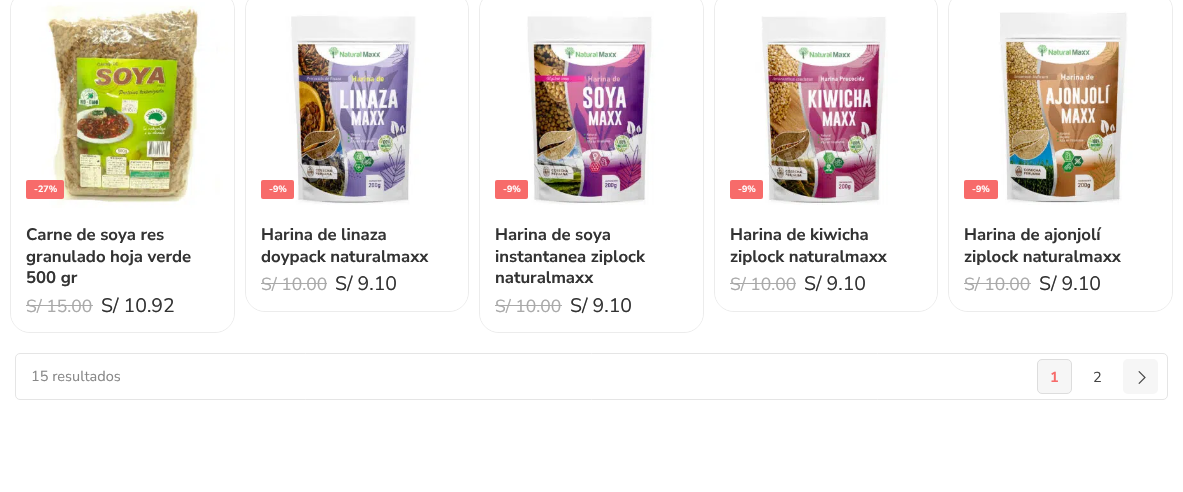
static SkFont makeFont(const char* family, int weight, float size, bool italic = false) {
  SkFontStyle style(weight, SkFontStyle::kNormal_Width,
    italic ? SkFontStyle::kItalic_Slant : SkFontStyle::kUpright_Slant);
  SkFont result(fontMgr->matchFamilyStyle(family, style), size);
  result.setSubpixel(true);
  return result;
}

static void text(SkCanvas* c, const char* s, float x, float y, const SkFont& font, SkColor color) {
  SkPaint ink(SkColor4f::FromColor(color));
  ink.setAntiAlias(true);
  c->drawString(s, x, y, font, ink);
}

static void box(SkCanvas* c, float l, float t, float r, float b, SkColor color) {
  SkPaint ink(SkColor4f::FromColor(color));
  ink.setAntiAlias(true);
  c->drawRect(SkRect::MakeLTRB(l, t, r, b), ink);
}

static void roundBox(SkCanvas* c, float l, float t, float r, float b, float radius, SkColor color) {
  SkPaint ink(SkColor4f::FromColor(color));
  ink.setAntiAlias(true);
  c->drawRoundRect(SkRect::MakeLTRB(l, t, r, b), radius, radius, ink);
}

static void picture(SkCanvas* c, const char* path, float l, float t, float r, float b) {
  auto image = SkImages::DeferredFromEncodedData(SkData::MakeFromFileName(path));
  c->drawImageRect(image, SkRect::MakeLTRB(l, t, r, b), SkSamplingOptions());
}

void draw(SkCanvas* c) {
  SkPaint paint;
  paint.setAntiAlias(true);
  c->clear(0xffffffff);
  paint.setStyle(SkPaint::kStroke_Style);
  paint.setStrokeWidth(1);
  paint.setColor(0xffececec);
  c->drawRoundRect(SkRect::MakeLTRB(10.5f, -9.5f, 234.5f, 332.5f), 19.5f, 19.5f, paint);
  picture(c, "img_01.png", 11, 2, 234, 208);
  paint.setStyle(SkPaint::kFill_Style);
  paint.setColor(0xffffffff);
  c->drawPath(SkPathBuilder().moveTo(11, 214).lineTo(234, 214).lineTo(234, 313).cubicTo(234, 323.5f, 225.5f, 332, 215, 332).lineTo(30, 332).cubicTo(19.5f, 332, 11, 323.5f, 11, 313).close().detach(), paint);
  roundBox(c, 26, 180, 64, 199, 2, 0xfff76b6a);
  SkFont face1 = makeFont("Nunito Sans", 700, 9);
  text(c, "-27%", 34, 192, face1, 0xffffffff);
  SkFont face2 = makeFont("Nunito Sans", 700, 16.75f);
  text(c, "Carne de soya res", 26, 240, face2, 0xff333333);
  text(c, "granulado hoja verde", 26, 262, face2, 0xff333333);
  text(c, "500 gr", 26, 283, face2, 0xff333333);
  SkFont face3 = makeFont("Nunito Sans", 400, 17.5f);
  text(c, "S/ 15.00", 26, 312, face3, 0xffaaaaaa);
  box(c, 26, 305, 93, 306, 0xffaaaaaa);
  SkFont face4 = makeFont("Nunito Sans", 400, 19.5f);
  text(c, "S/ 10.92", 101, 312, face4, 0xff333333);
  paint.setStyle(SkPaint::kStroke_Style);
  paint.setColor(0xffececec);
  c->drawRoundRect(SkRect::MakeLTRB(245.5f, -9.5f, 468.5f, 311.5f), 19.5f, 19.5f, paint);
  picture(c, "img_02.png", 246, 2, 468, 205);
  paint.setStyle(SkPaint::kFill_Style);
  paint.setColor(0xffffffff);
  c->drawPath(SkPathBuilder().moveTo(246, 214).lineTo(468, 214).lineTo(468, 292).cubicTo(468, 302.5f, 459.5f, 311, 449, 311).lineTo(265, 311).cubicTo(254.5f, 311, 246, 302.5f, 246, 292).close().detach(), paint);
  roundBox(c, 261, 180, 294, 199, 2, 0xfff76b6a);
  text(c, "-9%", 269, 192, face1, 0xffffffff);
  text(c, "Harina de linaza", 261, 240, face2, 0xff333333);
  text(c, "doypack naturalmaxx", 261, 262, face2, 0xff333333);
  text(c, "S/ 10.00", 261, 290, face3, 0xffaaaaaa);
  box(c, 261, 283, 327, 284, 0xffaaaaaa);
  text(c, "S/ 9.10", 335, 290, face4, 0xff333333);
  paint.setStyle(SkPaint::kStroke_Style);
  paint.setColor(0xffececec);
  c->drawRoundRect(SkRect::MakeLTRB(479.5f, -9.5f, 703.5f, 332.5f), 19.5f, 19.5f, paint);
  picture(c, "img_03.png", 480, 2, 703, 205);
  paint.setStyle(SkPaint::kFill_Style);
  paint.setColor(0xffffffff);
  c->drawPath(SkPathBuilder().moveTo(480, 214).lineTo(703, 214).lineTo(703, 313).cubicTo(703, 323.5f, 694.5f, 332, 684, 332).lineTo(499, 332).cubicTo(488.5f, 332, 480, 323.5f, 480, 313).close().detach(), paint);
  roundBox(c, 495, 180, 528, 199, 2, 0xfff76b6a);
  text(c, "-9%", 503, 192, face1, 0xffffffff);
  text(c, "Harina de soya", 495, 240, face2, 0xff333333);
  text(c, "instantanea ziplock", 495, 262, face2, 0xff333333);
  text(c, "naturalmaxx", 495, 283, face2, 0xff333333);
  text(c, "S/ 10.00", 495, 312, face3, 0xffaaaaaa);
  box(c, 495, 305, 562, 306, 0xffaaaaaa);
  text(c, "S/ 9.10", 570, 312, face4, 0xff333333);
  paint.setStyle(SkPaint::kStroke_Style);
  paint.setColor(0xffececec);
  c->drawRoundRect(SkRect::MakeLTRB(714.5f, -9.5f, 937.5f, 311.5f), 19.5f, 19.5f, paint);
  picture(c, "img_04.png", 715, 2, 937, 205);
  paint.setStyle(SkPaint::kFill_Style);
  paint.setColor(0xffffffff);
  c->drawPath(SkPathBuilder().moveTo(715, 214).lineTo(937, 214).lineTo(937, 292).cubicTo(937, 302.5f, 928.5f, 311, 918, 311).lineTo(734, 311).cubicTo(723.5f, 311, 715, 302.5f, 715, 292).close().detach(), paint);
  roundBox(c, 730, 180, 763, 199, 2, 0xfff76b6a);
  text(c, "-9%", 738, 192, face1, 0xffffffff);
  text(c, "Harina de kiwicha", 730, 240, face2, 0xff333333);
  text(c, "ziplock naturalmaxx", 730, 262, face2, 0xff333333);
  text(c, "S/ 10.00", 730, 290, face3, 0xffaaaaaa);
  box(c, 730, 283, 796, 284, 0xffaaaaaa);
  text(c, "S/ 9.10", 804, 290, face4, 0xff333333);
  paint.setStyle(SkPaint::kStroke_Style);
  paint.setColor(0xffececec);
  c->drawRoundRect(SkRect::MakeLTRB(948.5f, -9.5f, 1172.5f, 311.5f), 19.5f, 19.5f, paint);
  picture(c, "img_05.png", 949, 2, 1172, 205);
  paint.setStyle(SkPaint::kFill_Style);
  paint.setColor(0xffffffff);
  c->drawPath(SkPathBuilder().moveTo(949, 214).lineTo(1172, 214).lineTo(1172, 292).cubicTo(1172, 302.5f, 1163.5f, 311, 1153, 311).lineTo(968, 311).cubicTo(957.5f, 311, 949, 302.5f, 949, 292).close().detach(), paint);
  roundBox(c, 964, 180, 998, 199, 2, 0xfff76b6a);
  text(c, "-9%", 972, 192, face1, 0xffffffff);
  text(c, "Harina de ajonjolí", 964, 240, face2, 0xff333333);
  text(c, "ziplock naturalmaxx", 964, 262, face2, 0xff333333);
  text(c, "S/ 10.00", 964, 290, face3, 0xffaaaaaa);
  box(c, 964, 283, 1031, 284, 0xffaaaaaa);
  text(c, "S/ 9.10", 1039, 290, face4, 0xff333333);
  paint.setStyle(SkPaint::kStroke_Style);
  paint.setColor(0xffe5e5e5);
  c->drawRoundRect(SkRect::MakeLTRB(15.5f, 353.5f, 1167.5f, 399.5f), 4.5f, 4.5f, paint);
  SkFont face5 = makeFont("Nunito Sans", 400, 14.5f);
  text(c, "15 resultados", 31, 381, face5, 0xff888888);
  paint.setStyle(SkPaint::kFill_Style);
  paint.setColor(0xfff6f6f6);
  c->drawRoundRect(SkRect::MakeLTRB(1037.5f, 359.5f, 1071.5f, 393.5f), 4.5f, 4.5f, paint);
  paint.setStyle(SkPaint::kStroke_Style);
  paint.setColor(0xffdddddd);
  c->drawRoundRect(SkRect::MakeLTRB(1037.5f, 359.5f, 1071.5f, 393.5f), 4.5f, 4.5f, paint);
  SkFont face6 = makeFont("Nunito Sans", 700, 14.5f);
  text(c, "1", 1050, 382, face6, 0xfff76b6a);
  text(c, "2", 1093, 382, face5, 0xff444444);
  roundBox(c, 1123, 359, 1158, 394, 5, 0xfff6f6f6);
  picture(c, "img_06.png", 1138, 371, 1146, 384);
}
